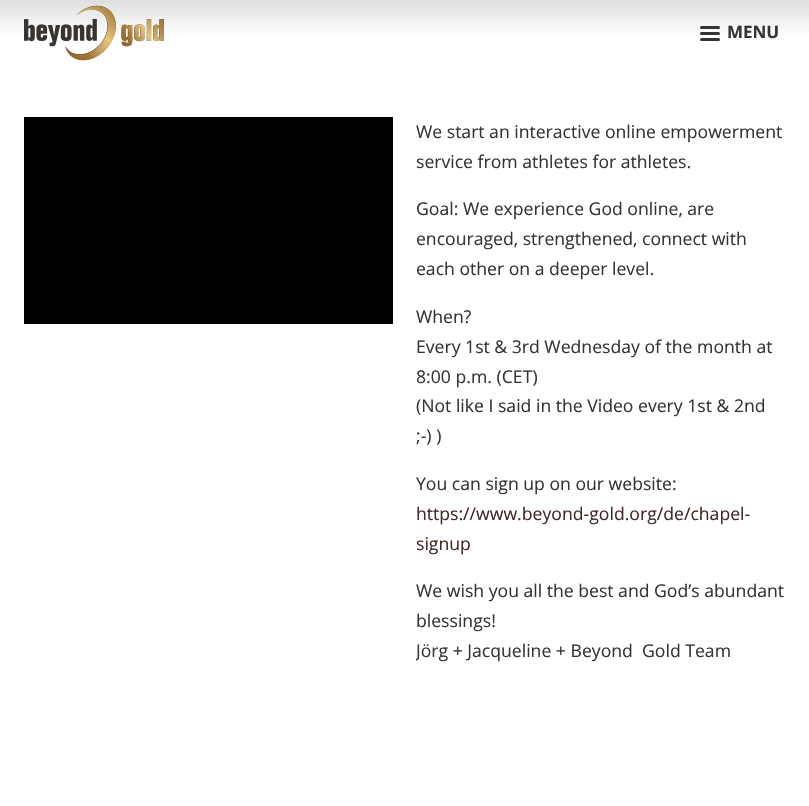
static SkFont makeFont(const char* family, int weight, float size, bool italic = false) {
  SkFontStyle style(weight, SkFontStyle::kNormal_Width,
    italic ? SkFontStyle::kItalic_Slant : SkFontStyle::kUpright_Slant);
  SkFont result(fontMgr->matchFamilyStyle(family, style), size);
  result.setSubpixel(true);
  return result;
}

static void text(SkCanvas* c, const char* s, float x, float y, const SkFont& font, SkColor color) {
  SkPaint ink(SkColor4f::FromColor(color));
  ink.setAntiAlias(true);
  c->drawString(s, x, y, font, ink);
}

static void box(SkCanvas* c, float l, float t, float r, float b, SkColor color) {
  SkPaint ink(SkColor4f::FromColor(color));
  ink.setAntiAlias(true);
  c->drawRect(SkRect::MakeLTRB(l, t, r, b), ink);
}

static void roundBox(SkCanvas* c, float l, float t, float r, float b, float radius, SkColor color) {
  SkPaint ink(SkColor4f::FromColor(color));
  ink.setAntiAlias(true);
  c->drawRoundRect(SkRect::MakeLTRB(l, t, r, b), radius, radius, ink);
}

static void picture(SkCanvas* c, const char* path, float l, float t, float r, float b) {
  auto image = SkImages::DeferredFromEncodedData(SkData::MakeFromFileName(path));
  c->drawImageRect(image, SkRect::MakeLTRB(l, t, r, b), SkSamplingOptions());
}

void draw(SkCanvas* c) {
  SkPaint paint;
  paint.setAntiAlias(true);
  c->clear(0xffffffff);
  {
    const SkColor colors[] = {0xd4d7d7d7, 0xbaffffff};
    const float stops[] = {0, 0.58f};
    const SkPoint ends[] = {{405, 0}, {405, 65}};
    paint.setShader(SkGradientShader::MakeLinear(ends, colors, stops, 2, SkTileMode::kClamp));
    paint.setAlpha(255);
  }
  c->drawRect(SkRect::MakeLTRB(0, 0, 809, 34), paint);
  picture(c, "img_01.png", 24, 5, 164, 61);
  roundBox(c, 700, 26, 720, 29, 1.5f, 0xff353432);
  SkFont face1 = makeFont("Open Sans", 700, 17);
  text(c, "MENU", 727, 38, face1, 0xff353432);
  roundBox(c, 700, 32, 720, 35, 1.5f, 0xff353432);
  roundBox(c, 700, 38, 720, 41, 1.5f, 0xff353432);
  box(c, 24, 117, 393, 324, 0xff000000);
  SkFont face2 = makeFont("Open Sans", 400, 17.6f);
  text(c, "We start an interactive online empowerment", 416, 138, face2, 0xff353432);
  text(c, "service from athletes for athletes.", 416, 168, face2, 0xff353432);
  text(c, "Goal: We experience God online, are", 416, 215, face2, 0xff353432);
  text(c, "encouraged, strengthened, connect with", 416, 245, face2, 0xff353432);
  text(c, "each other on a deeper level.", 416, 275, face2, 0xff353432);
  text(c, "When?", 416, 323, face2, 0xff353432);
  text(c, "Every 1st & 3rd Wednesday of the month at", 416, 353, face2, 0xff353432);
  text(c, "8:00 p.m. (CET)", 416, 383, face2, 0xff353432);
  text(c, "(Not like I said in the Video every 1st & 2nd", 416, 412, face2, 0xff353432);
  text(c, ";-) )", 416, 442, face2, 0xff353432);
  text(c, "You can sign up on our website:", 416, 490, face2, 0xff353432);
  text(c, "https://www.beyond-gold.org/de/chapel-", 416, 520, face2, 0xff412924);
  text(c, "signup", 416, 550, face2, 0xff412924);
  text(c, "We wish you all the best and God’s abundant", 416, 597, face2, 0xff353432);
  text(c, "blessings!", 416, 627, face2, 0xff353432);
  c->save();
  c->clipRect(SkRect::MakeLTRB(416, 117, 785, 731));
  text(c, "Jörg + Jacqueline + Beyond  Gold Team", 416, 657, face2, 0xff353432);
  c->restore();
}
